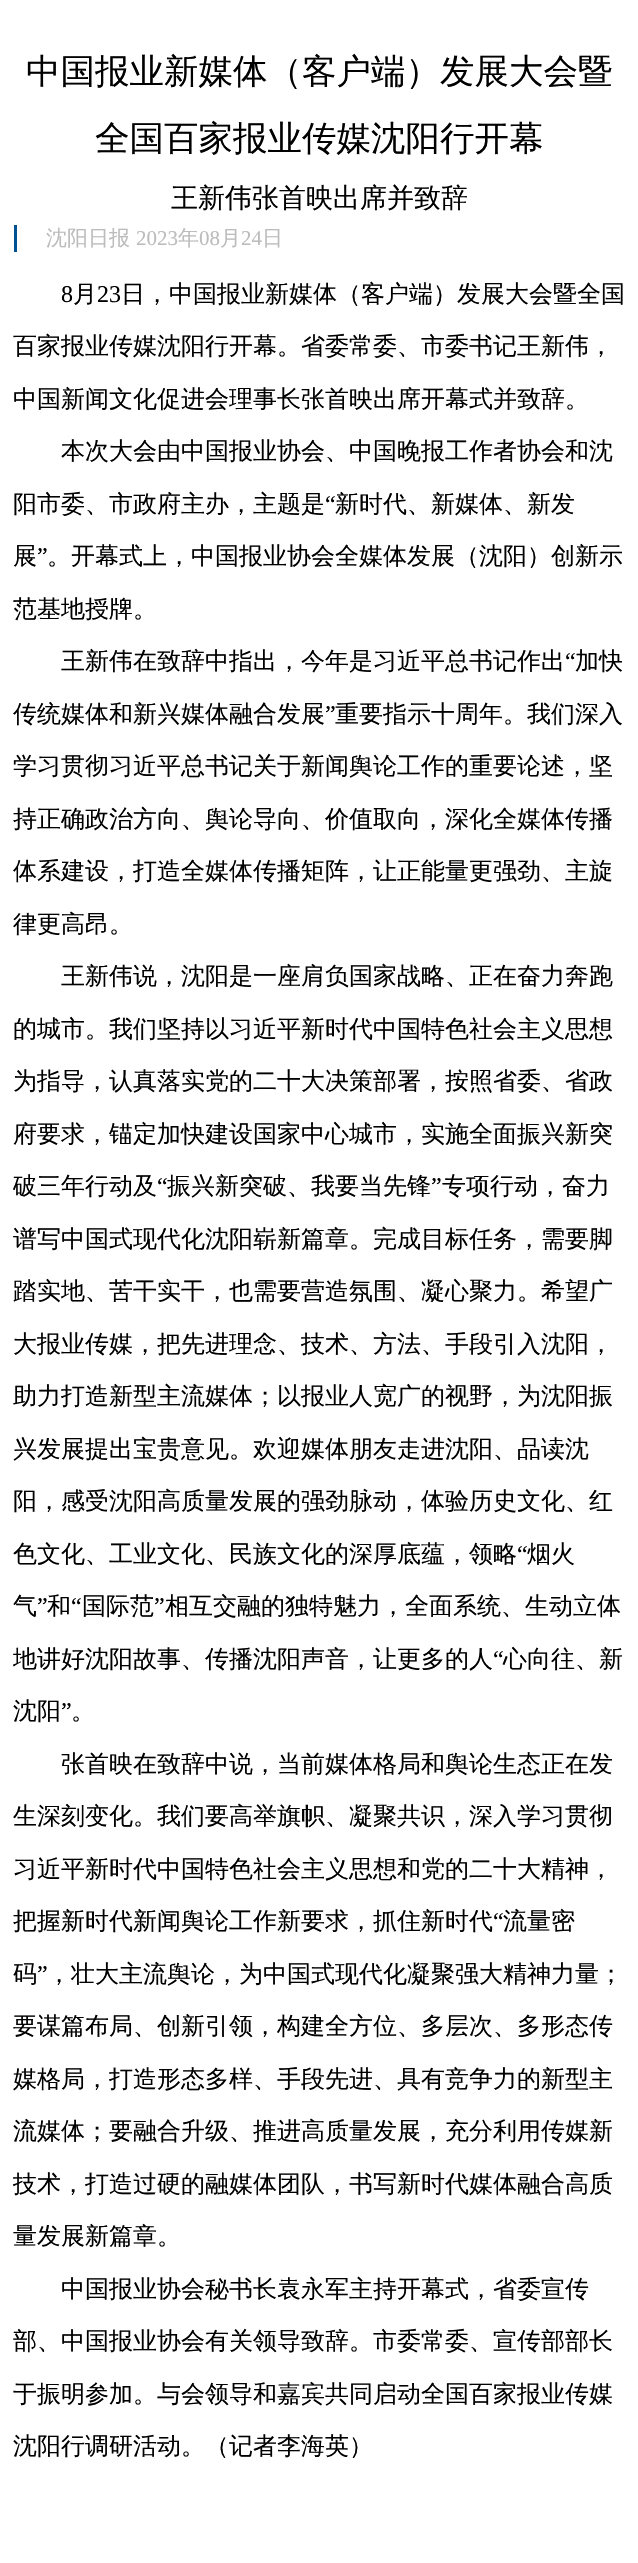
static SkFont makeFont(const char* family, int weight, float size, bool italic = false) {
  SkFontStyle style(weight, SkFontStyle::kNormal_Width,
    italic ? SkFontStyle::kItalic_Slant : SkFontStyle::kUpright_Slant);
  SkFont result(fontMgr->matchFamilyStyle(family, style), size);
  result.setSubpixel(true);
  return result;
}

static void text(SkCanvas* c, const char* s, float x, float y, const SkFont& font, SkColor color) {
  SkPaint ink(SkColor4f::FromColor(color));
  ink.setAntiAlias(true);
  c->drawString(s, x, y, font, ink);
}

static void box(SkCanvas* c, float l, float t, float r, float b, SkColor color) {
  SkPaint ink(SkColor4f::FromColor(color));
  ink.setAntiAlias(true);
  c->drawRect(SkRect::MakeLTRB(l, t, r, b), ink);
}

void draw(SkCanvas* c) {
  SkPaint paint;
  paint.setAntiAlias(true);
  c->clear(0xffffffff);
  SkFont face1 = makeFont("WenQuanYi Zen Hei", 500, 34.5f);
  text(c, "中国报业新媒体（客户端）发展大会暨", 26, 83, face1, 0xff000000);
  text(c, "全国百家报业传媒沈阳行开幕", 95, 150, face1, 0xff000000);
  SkFont face2 = makeFont("WenQuanYi Zen Hei", 500, 27);
  text(c, "王新伟张首映出席并致辞", 171, 207, face2, 0xff000000);
  box(c, 14, 225, 17, 252, 0xff015293);
  SkFont face3 = makeFont("WenQuanYi Zen Hei", 500, 21);
  text(c, "沈阳日报", 46, 245, face3, 0xffbcbcbc);
  SkFont face4 = makeFont("Liberation Serif", 400, 21);
  text(c, "2023", 136, 245, face4, 0xffbcbcbc);
  text(c, "年", 178, 245, face3, 0xffbcbcbc);
  text(c, "08", 199, 245, face4, 0xffbcbcbc);
  text(c, "月", 220, 245, face3, 0xffbcbcbc);
  text(c, "24", 241, 245, face4, 0xffbcbcbc);
  text(c, "日", 262, 245, face3, 0xffbcbcbc);
  SkFont face5 = makeFont("Liberation Serif", 400, 24);
  text(c, "8", 61, 302, face5, 0xff000000);
  SkFont face6 = makeFont("WenQuanYi Zen Hei", 500, 24);
  text(c, "月", 73, 302, face6, 0xff000000);
  text(c, "23", 97, 302, face5, 0xff000000);
  text(c, "日，中国报业新媒体（客户端）发展大会暨全国", 121, 302, face6, 0xff000000);
  text(c, "百家报业传媒沈阳行开幕。省委常委、市委书记王新伟，", 13, 354, face6, 0xff000000);
  text(c, "中国新闻文化促进会理事长张首映出席开幕式并致辞。", 13, 407, face6, 0xff000000);
  text(c, "本次大会由中国报业协会、中国晚报工作者协会和沈", 61, 459, face6, 0xff000000);
  text(c, "阳市委、市政府主办，主题是", 13, 512, face6, 0xff000000);
  text(c, "“", 325, 512, face5, 0xff000000);
  text(c, "新时代、新媒体、新发", 335, 512, face6, 0xff000000);
  text(c, "展", 13, 564, face6, 0xff000000);
  text(c, "”", 37, 564, face5, 0xff000000);
  text(c, "。开幕式上，中国报业协会全媒体发展（沈阳）创新示", 47, 564, face6, 0xff000000);
  text(c, "范基地授牌。", 13, 617, face6, 0xff000000);
  text(c, "王新伟在致辞中指出，今年是习近平总书记作出", 61, 669, face6, 0xff000000);
  text(c, "“", 565, 669, face5, 0xff000000);
  text(c, "加快", 575, 669, face6, 0xff000000);
  text(c, "传统媒体和新兴媒体融合发展", 13, 722, face6, 0xff000000);
  text(c, "”", 325, 722, face5, 0xff000000);
  text(c, "重要指示十周年。我们深入", 335, 722, face6, 0xff000000);
  text(c, "学习贯彻习近平总书记关于新闻舆论工作的重要论述，坚", 13, 774, face6, 0xff000000);
  text(c, "持正确政治方向、舆论导向、价值取向，深化全媒体传播", 13, 827, face6, 0xff000000);
  text(c, "体系建设，打造全媒体传播矩阵，让正能量更强劲、主旋", 13, 879, face6, 0xff000000);
  text(c, "律更高昂。", 13, 932, face6, 0xff000000);
  text(c, "王新伟说，沈阳是一座肩负国家战略、正在奋力奔跑", 61, 984, face6, 0xff000000);
  text(c, "的城市。我们坚持以习近平新时代中国特色社会主义思想", 13, 1037, face6, 0xff000000);
  text(c, "为指导，认真落实党的二十大决策部署，按照省委、省政", 13, 1089, face6, 0xff000000);
  text(c, "府要求，锚定加快建设国家中心城市，实施全面振兴新突", 13, 1142, face6, 0xff000000);
  text(c, "破三年行动及", 13, 1194, face6, 0xff000000);
  text(c, "“", 157, 1194, face5, 0xff000000);
  text(c, "振兴新突破、我要当先锋", 167, 1194, face6, 0xff000000);
  text(c, "”", 431, 1194, face5, 0xff000000);
  text(c, "专项行动，奋力", 442, 1194, face6, 0xff000000);
  text(c, "谱写中国式现代化沈阳崭新篇章。完成目标任务，需要脚", 13, 1247, face6, 0xff000000);
  text(c, "踏实地、苦干实干，也需要营造氛围、凝心聚力。希望广", 13, 1299, face6, 0xff000000);
  text(c, "大报业传媒，把先进理念、技术、方法、手段引入沈阳，", 13, 1352, face6, 0xff000000);
  text(c, "助力打造新型主流媒体；以报业人宽广的视野，为沈阳振", 13, 1404, face6, 0xff000000);
  text(c, "兴发展提出宝贵意见。欢迎媒体朋友走进沈阳、品读沈", 13, 1457, face6, 0xff000000);
  text(c, "阳，感受沈阳高质量发展的强劲脉动，体验历史文化、红", 13, 1509, face6, 0xff000000);
  text(c, "色文化、工业文化、民族文化的深厚底蕴，领略", 13, 1562, face6, 0xff000000);
  text(c, "“", 517, 1562, face5, 0xff000000);
  text(c, "烟火", 527, 1562, face6, 0xff000000);
  text(c, "气", 13, 1614, face6, 0xff000000);
  text(c, "”", 37, 1614, face5, 0xff000000);
  text(c, "和", 47, 1614, face6, 0xff000000);
  text(c, "“", 71, 1614, face5, 0xff000000);
  text(c, "国际范", 82, 1614, face6, 0xff000000);
  text(c, "”", 154, 1614, face5, 0xff000000);
  text(c, "相互交融的独特魅力，全面系统、生动立体", 165, 1614, face6, 0xff000000);
  text(c, "地讲好沈阳故事、传播沈阳声音，让更多的人", 13, 1667, face6, 0xff000000);
  text(c, "“", 493, 1667, face5, 0xff000000);
  text(c, "心向往、新", 503, 1667, face6, 0xff000000);
  text(c, "沈阳", 13, 1719, face6, 0xff000000);
  text(c, "”", 61, 1719, face5, 0xff000000);
  text(c, "。", 71, 1719, face6, 0xff000000);
  text(c, "张首映在致辞中说，当前媒体格局和舆论生态正在发", 61, 1772, face6, 0xff000000);
  text(c, "生深刻变化。我们要高举旗帜、凝聚共识，深入学习贯彻", 13, 1824, face6, 0xff000000);
  text(c, "习近平新时代中国特色社会主义思想和党的二十大精神，", 13, 1877, face6, 0xff000000);
  text(c, "把握新时代新闻舆论工作新要求，抓住新时代", 13, 1929, face6, 0xff000000);
  text(c, "“", 493, 1929, face5, 0xff000000);
  text(c, "流量密", 503, 1929, face6, 0xff000000);
  text(c, "码", 13, 1982, face6, 0xff000000);
  text(c, "”", 37, 1982, face5, 0xff000000);
  text(c, "，壮大主流舆论，为中国式现代化凝聚强大精神力量；", 47, 1982, face6, 0xff000000);
  text(c, "要谋篇布局、创新引领，构建全方位、多层次、多形态传", 13, 2034, face6, 0xff000000);
  text(c, "媒格局，打造形态多样、手段先进、具有竞争力的新型主", 13, 2087, face6, 0xff000000);
  text(c, "流媒体；要融合升级、推进高质量发展，充分利用传媒新", 13, 2139, face6, 0xff000000);
  text(c, "技术，打造过硬的融媒体团队，书写新时代媒体融合高质", 13, 2192, face6, 0xff000000);
  text(c, "量发展新篇章。", 13, 2244, face6, 0xff000000);
  text(c, "中国报业协会秘书长袁永军主持开幕式，省委宣传", 61, 2297, face6, 0xff000000);
  text(c, "部、中国报业协会有关领导致辞。市委常委、宣传部部长", 13, 2349, face6, 0xff000000);
  text(c, "于振明参加。与会领导和嘉宾共同启动全国百家报业传媒", 13, 2402, face6, 0xff000000);
  text(c, "沈阳行调研活动。（记者李海英）", 13, 2454, face6, 0xff000000);
}
